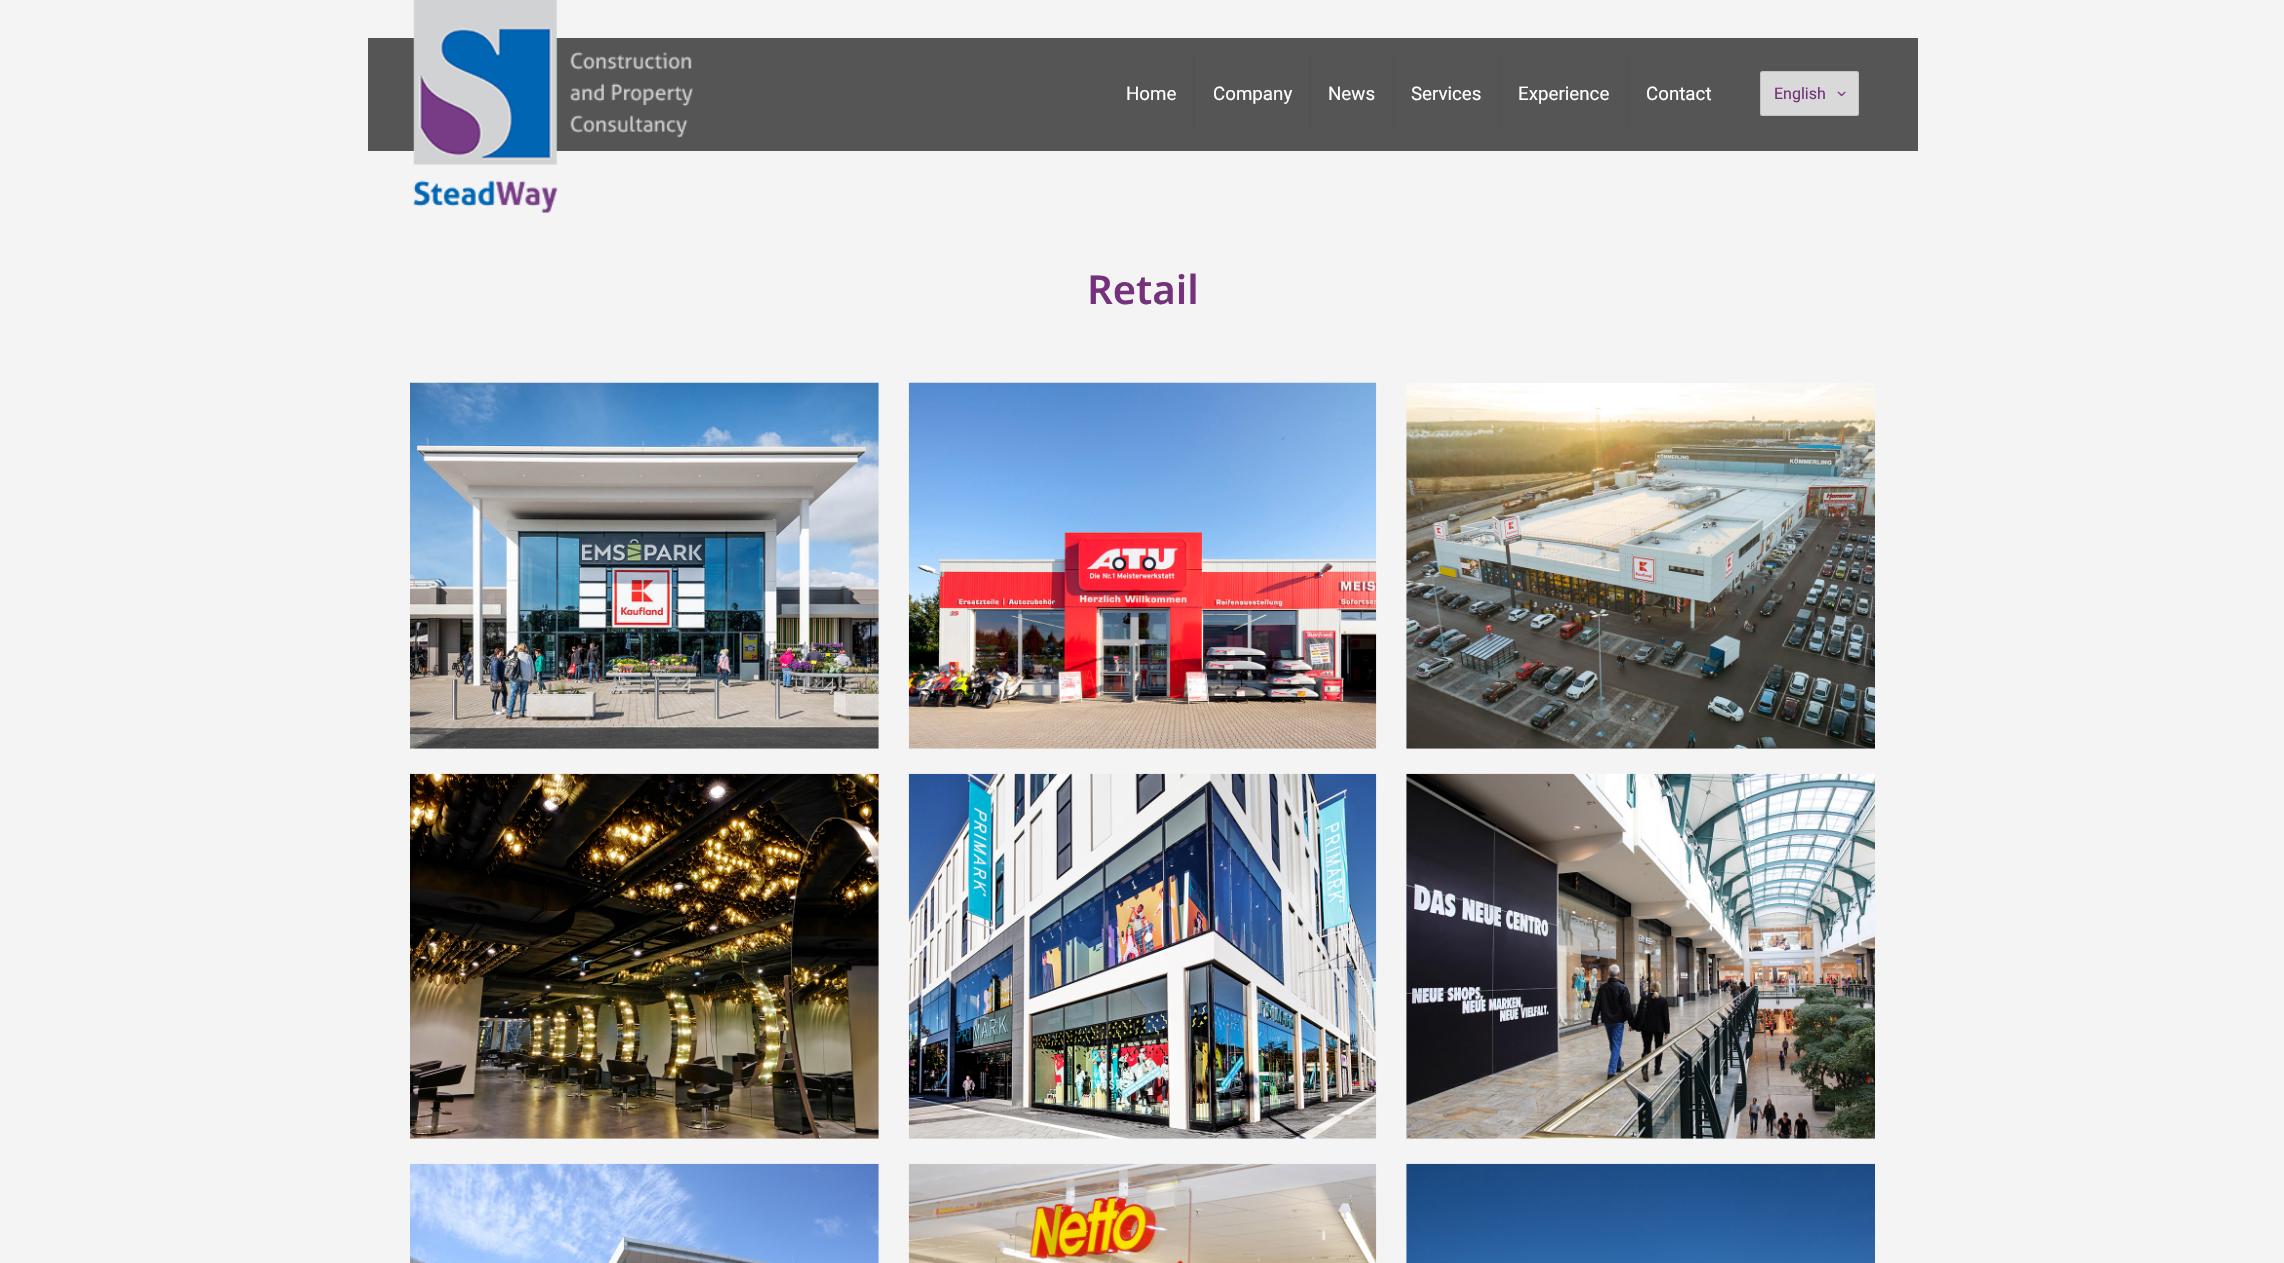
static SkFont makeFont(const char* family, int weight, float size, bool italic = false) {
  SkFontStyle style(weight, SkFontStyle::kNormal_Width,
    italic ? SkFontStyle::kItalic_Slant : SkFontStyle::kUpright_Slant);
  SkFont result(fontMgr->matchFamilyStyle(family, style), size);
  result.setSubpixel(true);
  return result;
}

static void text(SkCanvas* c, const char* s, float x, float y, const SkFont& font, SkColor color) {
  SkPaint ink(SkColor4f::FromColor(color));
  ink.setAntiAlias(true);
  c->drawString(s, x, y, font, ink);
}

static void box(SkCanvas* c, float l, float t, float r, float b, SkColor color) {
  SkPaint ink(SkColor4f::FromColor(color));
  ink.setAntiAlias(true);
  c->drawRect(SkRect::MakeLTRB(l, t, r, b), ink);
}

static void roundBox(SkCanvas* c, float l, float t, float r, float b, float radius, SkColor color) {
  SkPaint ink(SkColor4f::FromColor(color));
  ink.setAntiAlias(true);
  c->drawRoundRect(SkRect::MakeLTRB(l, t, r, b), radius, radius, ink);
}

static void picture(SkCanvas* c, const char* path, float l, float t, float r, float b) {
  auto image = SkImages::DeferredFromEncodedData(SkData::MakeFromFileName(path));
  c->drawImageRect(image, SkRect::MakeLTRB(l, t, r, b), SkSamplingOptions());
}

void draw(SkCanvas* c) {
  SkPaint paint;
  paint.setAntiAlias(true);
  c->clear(0xfff4f4f4);
  box(c, 368, 38, 1918, 151, 0xff555555);
  picture(c, "img_01.png", 413, 0, 693, 213);
  box(c, 1194, 56, 1195, 131, 0xff515151);
  SkFont face1 = makeFont("Roboto", 400, 18.75f);
  text(c, "Home", 1126, 100, face1, 0xffffffff);
  box(c, 1309, 56, 1310, 131, 0xff515151);
  text(c, "Company", 1213, 100, face1, 0xffffffff);
  box(c, 1393, 56, 1394, 131, 0xff515151);
  text(c, "News", 1328, 100, face1, 0xffffffff);
  box(c, 1500, 56, 1501, 131, 0xff515151);
  text(c, "Services", 1411, 100, face1, 0xffffffff);
  box(c, 1628, 56, 1629, 131, 0xff515151);
  text(c, "Experience", 1518, 100, face1, 0xffffffff);
  text(c, "Contact", 1646, 100, face1, 0xffffffff);
  roundBox(c, 1760, 71, 1859, 116, 2.5f, 0xffd9d9d9);
  paint.setStyle(SkPaint::kStroke_Style);
  paint.setStrokeWidth(1);
  paint.setColor(0x1a000000);
  c->drawRoundRect(SkRect::MakeLTRB(1760.5f, 71.5f, 1858.5f, 115.5f), 2, 2, paint);
  SkFont face2 = makeFont("Roboto", 400, 16);
  text(c, "English", 1774, 99, face2, 0xff75317b);
  picture(c, "img_02.png", 1837, 91, 1846, 97);
  SkFont face3 = makeFont("Noto Sans", 600, 40);
  text(c, "Retail", 1087, 304, face3, 0xff75317b);
  picture(c, "img_03.png", 410, 382, 879, 749);
  picture(c, "img_04.png", 908, 382, 1377, 749);
  picture(c, "img_05.png", 1406, 383, 1875, 749);
  picture(c, "img_06.png", 410, 773, 879, 1139);
  picture(c, "img_07.png", 908, 773, 1377, 1139);
  picture(c, "img_08.png", 1406, 773, 1875, 1139);
  picture(c, "img_09.png", 410, 1163, 879, 1263);
  picture(c, "img_10.png", 908, 1163, 1377, 1263);
  picture(c, "img_11.png", 1406, 1163, 1875, 1263);
}
